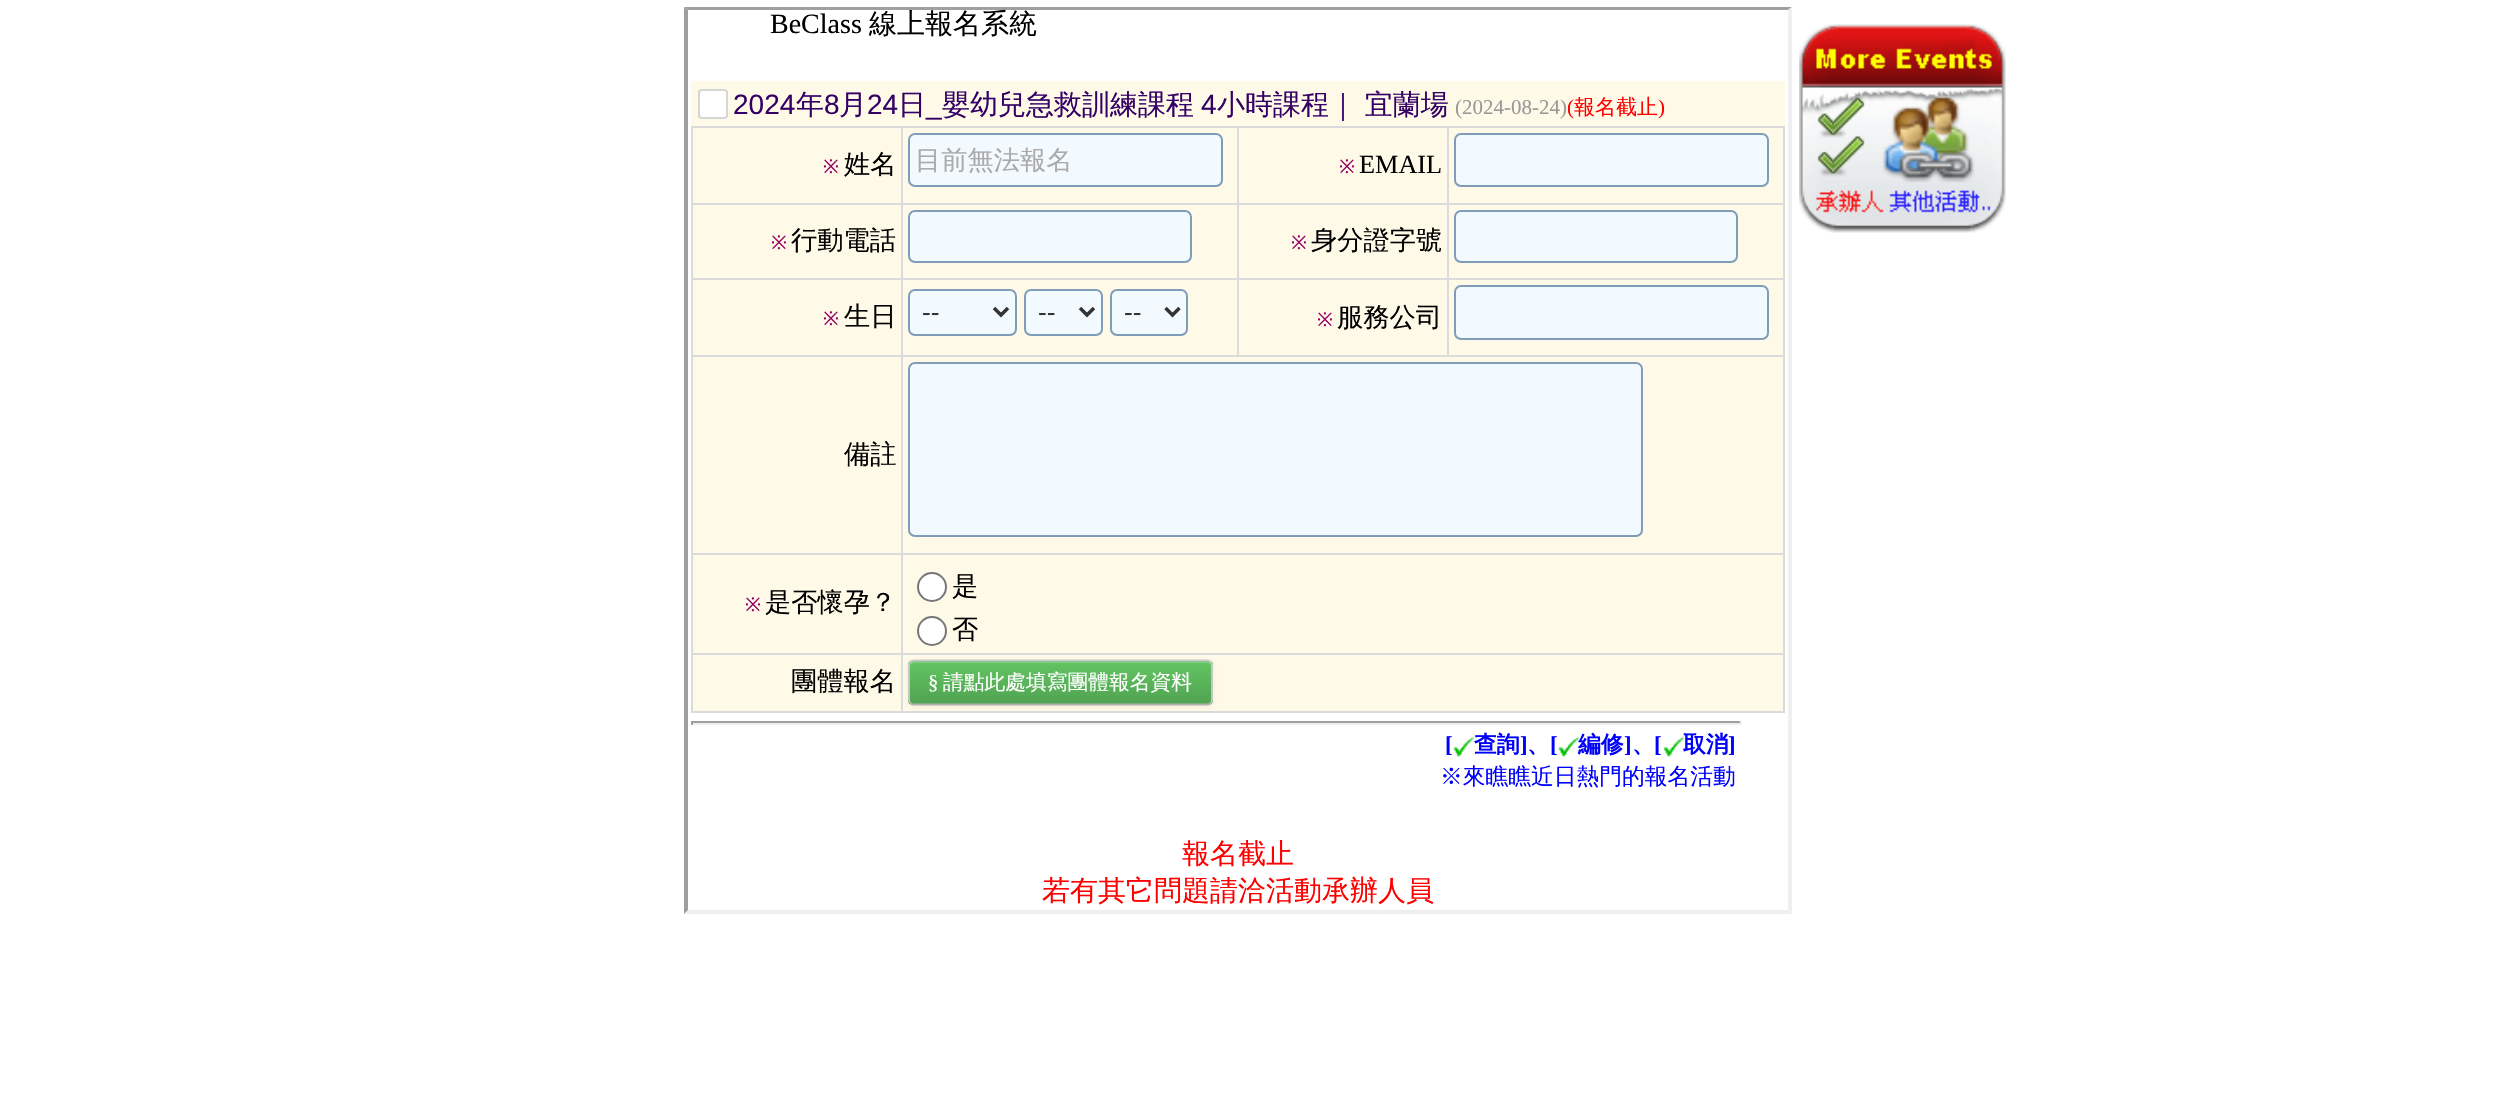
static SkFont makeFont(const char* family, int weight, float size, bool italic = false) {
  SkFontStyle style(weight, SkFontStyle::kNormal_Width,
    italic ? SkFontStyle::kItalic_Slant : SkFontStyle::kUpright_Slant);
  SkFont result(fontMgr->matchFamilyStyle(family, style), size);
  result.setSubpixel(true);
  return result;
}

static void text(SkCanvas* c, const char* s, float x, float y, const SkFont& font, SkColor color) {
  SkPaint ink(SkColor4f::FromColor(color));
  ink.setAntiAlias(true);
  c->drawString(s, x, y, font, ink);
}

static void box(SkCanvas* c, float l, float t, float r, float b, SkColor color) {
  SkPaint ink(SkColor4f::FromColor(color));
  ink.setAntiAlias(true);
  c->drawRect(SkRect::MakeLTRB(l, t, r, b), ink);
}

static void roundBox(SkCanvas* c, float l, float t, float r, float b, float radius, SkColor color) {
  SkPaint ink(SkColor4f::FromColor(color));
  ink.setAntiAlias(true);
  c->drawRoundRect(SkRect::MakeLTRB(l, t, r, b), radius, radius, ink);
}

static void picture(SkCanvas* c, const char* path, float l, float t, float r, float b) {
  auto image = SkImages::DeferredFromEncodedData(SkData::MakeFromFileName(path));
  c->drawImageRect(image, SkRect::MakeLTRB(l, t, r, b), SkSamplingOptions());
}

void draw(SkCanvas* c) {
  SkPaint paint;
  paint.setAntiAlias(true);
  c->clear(0xffffffff);
  paint.setColor(0xff9f9f9f);
  c->drawPath(SkPathBuilder().moveTo(684, 7).lineTo(1792, 7).lineTo(1788, 10).lineTo(688, 10).close().detach(), paint);
  paint.setColor(0xffefefef);
  c->drawPath(SkPathBuilder().moveTo(1792, 7).lineTo(1792, 914).lineTo(1788, 910).lineTo(1788, 10).close().detach(), paint);
  c->drawPath(SkPathBuilder().moveTo(1792, 914).lineTo(684, 914).lineTo(688, 910).lineTo(1788, 910).close().detach(), paint);
  paint.setColor(0xff9f9f9f);
  c->drawPath(SkPathBuilder().moveTo(684, 914).lineTo(684, 7).lineTo(688, 10).lineTo(688, 910).close().detach(), paint);
  SkFont face1 = makeFont("Liberation Serif", 400, 28);
  text(c, "BeClass", 770, 33, face1, 0xff000000);
  SkFont face2 = makeFont("WenQuanYi Zen Hei", 500, 28);
  text(c, "線上報名系統", 869, 33, face2, 0xff000000);
  box(c, 691, 81, 1785, 711, 0xfffff9e7);
  roundBox(c, 698, 89, 728, 119, 4, 0xffffffff);
  paint.setStyle(SkPaint::kStroke_Style);
  paint.setStrokeWidth(2);
  paint.setColor(0x4d767676);
  c->drawRoundRect(SkRect::MakeLTRB(699, 90, 727, 118), 3, 3, paint);
  SkFont face3 = makeFont("Liberation Sans", 400, 28);
  text(c, "2024", 733, 114, face3, 0xff330066);
  text(c, "年", 796, 114, face2, 0xff330066);
  text(c, "8", 824, 114, face3, 0xff330066);
  text(c, "月", 839, 114, face2, 0xff330066);
  text(c, "24", 867, 114, face3, 0xff330066);
  text(c, "日", 898, 114, face2, 0xff330066);
  text(c, "_", 926, 114, face3, 0xff330066);
  text(c, "嬰幼兒急救訓練課程", 942, 114, face2, 0xff330066);
  text(c, "4", 1201, 114, face3, 0xff330066);
  text(c, "小時課程｜ 宜蘭場", 1217, 114, face2, 0xff330066);
  SkFont face4 = makeFont("Liberation Serif", 400, 21);
  text(c, "(2024-08-24)", 1455, 114, face4, 0xff999999);
  text(c, "(", 1567, 114, face4, 0xffff0000);
  SkFont face5 = makeFont("WenQuanYi Zen Hei", 500, 21);
  text(c, "報名截止", 1574, 114, face5, 0xffff0000);
  text(c, ")", 1658, 114, face4, 0xffff0000);
  box(c, 691, 126, 1785, 128, 0xffdbdbdb);
  box(c, 1783, 126, 1785, 712, 0xffdbdbdb);
  box(c, 691, 711, 1785, 713, 0xffdbdbdb);
  box(c, 691, 126, 693, 712, 0xffdbdbdb);
  SkFont face6 = makeFont("Noto Sans", 400, 19);
  text(c, "※", 823, 173, face6, 0xff990066);
  SkFont face7 = makeFont("WenQuanYi Zen Hei", 500, 26.25f);
  text(c, "姓名", 844, 173, face7, 0xff000000);
  box(c, 1447, 203, 1785, 205, 0xffdbdbdb);
  box(c, 1447, 278, 1785, 280, 0xffdbdbdb);
  box(c, 901, 355, 1785, 357, 0xffdbdbdb);
  box(c, 1447, 278, 1449, 357, 0xffdbdbdb);
  box(c, 1237, 278, 1449, 280, 0xffdbdbdb);
  box(c, 1447, 203, 1449, 280, 0xffdbdbdb);
  box(c, 1237, 203, 1449, 205, 0xffdbdbdb);
  box(c, 1237, 278, 1239, 357, 0xffdbdbdb);
  box(c, 901, 278, 1239, 280, 0xffdbdbdb);
  box(c, 1237, 203, 1239, 280, 0xffdbdbdb);
  box(c, 901, 203, 1239, 205, 0xffdbdbdb);
  box(c, 901, 553, 1785, 555, 0xffdbdbdb);
  box(c, 901, 653, 1785, 655, 0xffdbdbdb);
  box(c, 901, 653, 903, 712, 0xffdbdbdb);
  box(c, 691, 653, 903, 655, 0xffdbdbdb);
  box(c, 901, 553, 903, 655, 0xffdbdbdb);
  box(c, 691, 553, 903, 555, 0xffdbdbdb);
  box(c, 901, 355, 903, 555, 0xffdbdbdb);
  box(c, 691, 355, 903, 357, 0xffdbdbdb);
  box(c, 901, 278, 903, 357, 0xffdbdbdb);
  box(c, 691, 278, 903, 280, 0xffdbdbdb);
  box(c, 901, 203, 903, 280, 0xffdbdbdb);
  box(c, 691, 203, 903, 205, 0xffdbdbdb);
  box(c, 901, 126, 903, 205, 0xffdbdbdb);
  paint.setStyle(SkPaint::kFill_Style);
  paint.setColor(0xfff2faff);
  c->drawRoundRect(SkRect::MakeLTRB(909, 134, 1222, 186), 6, 6, paint);
  paint.setStyle(SkPaint::kStroke_Style);
  paint.setColor(0xff7f9db9);
  c->drawRoundRect(SkRect::MakeLTRB(909, 134, 1222, 186), 6, 6, paint);
  text(c, "目前無法報名", 915, 169, face7, 0xffaaaaaa);
  box(c, 1237, 126, 1239, 205, 0xffdbdbdb);
  text(c, "※", 1339, 173, face6, 0xff990066);
  SkFont face8 = makeFont("Liberation Serif", 400, 26.25f);
  text(c, "EMAIL", 1359, 173, face8, 0xff000000);
  box(c, 1447, 126, 1449, 205, 0xffdbdbdb);
  paint.setStyle(SkPaint::kFill_Style);
  paint.setColor(0xfff2faff);
  c->drawRoundRect(SkRect::MakeLTRB(1455, 134, 1768, 186), 6, 6, paint);
  paint.setStyle(SkPaint::kStroke_Style);
  paint.setColor(0xff7f9db9);
  c->drawRoundRect(SkRect::MakeLTRB(1455, 134, 1768, 186), 6, 6, paint);
  text(c, "※", 771, 249, face6, 0xff990066);
  text(c, "行動電話", 791, 249, face7, 0xff000000);
  paint.setStyle(SkPaint::kFill_Style);
  paint.setColor(0xfff2faff);
  c->drawRoundRect(SkRect::MakeLTRB(909, 211, 1191, 262), 6, 6, paint);
  paint.setStyle(SkPaint::kStroke_Style);
  paint.setColor(0xff7f9db9);
  c->drawRoundRect(SkRect::MakeLTRB(909, 211, 1191, 262), 6, 6, paint);
  text(c, "※", 1291, 249, face6, 0xff990066);
  text(c, "身分證字號", 1311, 249, face7, 0xff000000);
  paint.setStyle(SkPaint::kFill_Style);
  paint.setColor(0xfff2faff);
  c->drawRoundRect(SkRect::MakeLTRB(1455, 211, 1737, 262), 6, 6, paint);
  paint.setStyle(SkPaint::kStroke_Style);
  paint.setColor(0xff7f9db9);
  c->drawRoundRect(SkRect::MakeLTRB(1455, 211, 1737, 262), 6, 6, paint);
  text(c, "※", 823, 325, face6, 0xff990066);
  text(c, "生日", 844, 325, face7, 0xff000000);
  paint.setStyle(SkPaint::kFill_Style);
  paint.setColor(0xfff2faff);
  c->drawRoundRect(SkRect::MakeLTRB(909, 290, 1016, 335), 6, 6, paint);
  paint.setStyle(SkPaint::kStroke_Style);
  paint.setColor(0xff7f9db9);
  c->drawRoundRect(SkRect::MakeLTRB(909, 290, 1016, 335), 6, 6, paint);
  paint.setStrokeWidth(3.5f);
  paint.setColor(0xff333333);
  c->drawPath(SkPathBuilder().moveTo(994, 308).lineTo(1001, 315).lineTo(1008, 308).detach(), paint);
  SkFont face9 = makeFont("Liberation Sans", 400, 26.25f);
  text(c, "--", 922, 321, face9, 0xff333333);
  paint.setStyle(SkPaint::kFill_Style);
  paint.setColor(0xfff2faff);
  c->drawRoundRect(SkRect::MakeLTRB(1025, 290, 1102, 335), 6, 6, paint);
  paint.setStyle(SkPaint::kStroke_Style);
  paint.setStrokeWidth(2);
  paint.setColor(0xff7f9db9);
  c->drawRoundRect(SkRect::MakeLTRB(1025, 290, 1102, 335), 6, 6, paint);
  paint.setStrokeWidth(3.5f);
  paint.setColor(0xff333333);
  c->drawPath(SkPathBuilder().moveTo(1080, 308).lineTo(1087, 315).lineTo(1094, 308).detach(), paint);
  text(c, "--", 1038, 321, face9, 0xff333333);
  paint.setStyle(SkPaint::kFill_Style);
  paint.setColor(0xfff2faff);
  c->drawRoundRect(SkRect::MakeLTRB(1111, 290, 1187, 335), 6, 6, paint);
  paint.setStyle(SkPaint::kStroke_Style);
  paint.setStrokeWidth(2);
  paint.setColor(0xff7f9db9);
  c->drawRoundRect(SkRect::MakeLTRB(1111, 290, 1187, 335), 6, 6, paint);
  paint.setStrokeWidth(3.5f);
  paint.setColor(0xff333333);
  c->drawPath(SkPathBuilder().moveTo(1165.5f, 308).lineTo(1172.5f, 315).lineTo(1179.5f, 308).detach(), paint);
  text(c, "--", 1124, 321, face9, 0xff333333);
  text(c, "※", 1317, 326, face6, 0xff990066);
  text(c, "服務公司", 1337, 326, face7, 0xff000000);
  paint.setStyle(SkPaint::kFill_Style);
  paint.setColor(0xfff2faff);
  c->drawRoundRect(SkRect::MakeLTRB(1455, 286, 1768, 339), 6, 6, paint);
  paint.setStyle(SkPaint::kStroke_Style);
  paint.setStrokeWidth(2);
  paint.setColor(0xff7f9db9);
  c->drawRoundRect(SkRect::MakeLTRB(1455, 286, 1768, 339), 6, 6, paint);
  text(c, "備註", 844, 463, face7, 0xff000000);
  paint.setStyle(SkPaint::kFill_Style);
  paint.setColor(0xfff2faff);
  c->drawRoundRect(SkRect::MakeLTRB(909, 363, 1642, 536), 6, 6, paint);
  paint.setStyle(SkPaint::kStroke_Style);
  paint.setColor(0xff7f9db9);
  c->drawRoundRect(SkRect::MakeLTRB(909, 363, 1642, 536), 6, 6, paint);
  text(c, "※", 745, 611, face6, 0xff990066);
  text(c, "是否懷孕？", 765, 611, face7, 0xff000000);
  paint.setStyle(SkPaint::kFill_Style);
  paint.setColor(0xffffffff);
  c->drawCircle(932, 587, 14, paint);
  paint.setStyle(SkPaint::kStroke_Style);
  paint.setColor(0xff767676);
  c->drawCircle(932, 587, 14, paint);
  text(c, "是", 952, 595, face7, 0xff000000);
  paint.setStyle(SkPaint::kFill_Style);
  paint.setColor(0xffffffff);
  c->drawCircle(932, 631, 14, paint);
  paint.setStyle(SkPaint::kStroke_Style);
  paint.setColor(0xff767676);
  c->drawCircle(932, 631, 14, paint);
  text(c, "否", 952, 638, face7, 0xff000000);
  text(c, "團體報名", 791, 690, face7, 0xff000000);
  paint.setStyle(SkPaint::kFill_Style);
  paint.setColor(0x0d000000);
  paint.setMaskFilter(SkMaskFilter::MakeBlur(kNormal_SkBlurStyle, 2));
  c->drawRoundRect(SkRect::MakeLTRB(908, 662, 1213, 707), 5, 5, paint);
  paint.setMaskFilter(nullptr);
  roundBox(c, 908, 660, 1213, 705, 5, 0xff5bb75b);
  c->save();
  c->clipPath(SkPathBuilder().moveTo(913, 660).lineTo(1208, 660).cubicTo(1211, 660, 1213, 662, 1213, 665).lineTo(1213, 700).cubicTo(1213, 703, 1211, 705, 1208, 705).lineTo(913, 705).cubicTo(910, 705, 908, 703, 908, 700).lineTo(908, 665).cubicTo(908, 662, 910, 660, 913, 660).close().detach(), true);
  {
    const SkColor colors[] = {0xff62c462, 0xff51a351};
    const float stops[] = {0, 1};
    const SkPoint ends[] = {{1061, 662}, {1061, 704}};
    paint.setShader(SkGradientShader::MakeLinear(ends, colors, stops, 2, SkTileMode::kClamp));
    paint.setAlpha(255);
  }
  c->drawRect(SkRect::MakeLTRB(908, 662, 1213, 704), paint);
  c->restore();
  paint.setShader(nullptr);
  paint.setColor(0xff81d081);
  c->drawPath(SkPathBuilder().moveTo(914, 663).lineTo(1208, 663).cubicTo(1209, 663, 1211, 665, 1211, 667).cubicTo(1211, 664, 1210, 662, 1207, 662).lineTo(914, 662).cubicTo(911, 662, 910, 664, 910, 667).cubicTo(910, 665, 912, 663, 914, 663).close().detach(), paint);
  paint.setStyle(SkPaint::kStroke_Style);
  paint.setStrokeWidth(1.8f);
  paint.setColor(0xffb3b3b3);
  c->drawPath(SkPathBuilder().moveTo(1210.5f, 703).cubicTo(1210, 704, 1208.5f, 704.5f, 1207.5f, 704.5f).lineTo(913.5f, 704.5f).cubicTo(912.5f, 704.5f, 911, 704, 910.5f, 703).detach(), paint);
  paint.setColor(0xffcccccc);
  c->drawPath(SkPathBuilder().moveTo(910.5f, 703).cubicTo(909.5f, 702.5f, 909, 701, 909, 700).lineTo(909, 665).cubicTo(909, 664, 909.5f, 662.5f, 910.5f, 662).cubicTo(911, 661, 912.5f, 660.5f, 913.5f, 660.5f).lineTo(1207.5f, 660.5f).cubicTo(1208.5f, 660.5f, 1210, 661, 1210.5f, 662).cubicTo(1211.5f, 662.5f, 1212, 664, 1212, 665).lineTo(1212, 700).cubicTo(1212, 701, 1211.5f, 702.5f, 1210.5f, 703).detach(), paint);
  SkFont face10 = makeFont("Liberation Serif", 400, 20.75f);
  text(c, "§", 928, 689, face10, 0xffffffff);
  SkFont face11 = makeFont("WenQuanYi Zen Hei", 500, 20.75f);
  text(c, "請點此處填寫團體報名資料", 943, 689, face11, 0xffffffff);
  box(c, 691, 721, 1741, 723, 0xff9f9f9f);
  box(c, 1740, 721, 1742, 725, 0xffeeeeee);
  box(c, 691, 723, 1741, 725, 0xffeeeeee);
  box(c, 691, 721, 693, 725, 0xff9f9f9f);
  SkFont face12 = makeFont("Liberation Serif", 700, 22.75f);
  text(c, "[", 1445, 752, face12, 0xff0000ff);
  picture(c, "img_01.png", 1453, 736, 1474, 757);
  SkFont face13 = makeFont("WenQuanYi Zen Hei", 700, 22.75f);
  text(c, "查詢", 1474, 752, face13, 0xff0000ff);
  text(c, "]", 1520, 752, face12, 0xff0000ff);
  text(c, "、", 1527, 752, face13, 0xff0000ff);
  text(c, "[", 1550, 752, face12, 0xff0000ff);
  picture(c, "img_01.png", 1558, 736, 1579, 757);
  text(c, "編修", 1578, 752, face13, 0xff0000ff);
  text(c, "]", 1624, 752, face12, 0xff0000ff);
  text(c, "、", 1632, 752, face13, 0xff0000ff);
  text(c, "[", 1654, 752, face12, 0xff0000ff);
  picture(c, "img_01.png", 1663, 736, 1684, 757);
  text(c, "取消", 1683, 752, face13, 0xff0000ff);
  text(c, "]", 1728, 752, face12, 0xff0000ff);
  SkFont face14 = makeFont("WenQuanYi Zen Hei", 500, 22.75f);
  text(c, "※來瞧瞧近日熱門的報名活動", 1440, 784, face14, 0xff0000ff);
  text(c, "報名截止", 1182, 863, face2, 0xffff0000);
  text(c, "若有其它問題請洽活動承辦人員", 1042, 900, face2, 0xffff0000);
  picture(c, "img_02.png", 1799, 24, 2006, 233);
}
